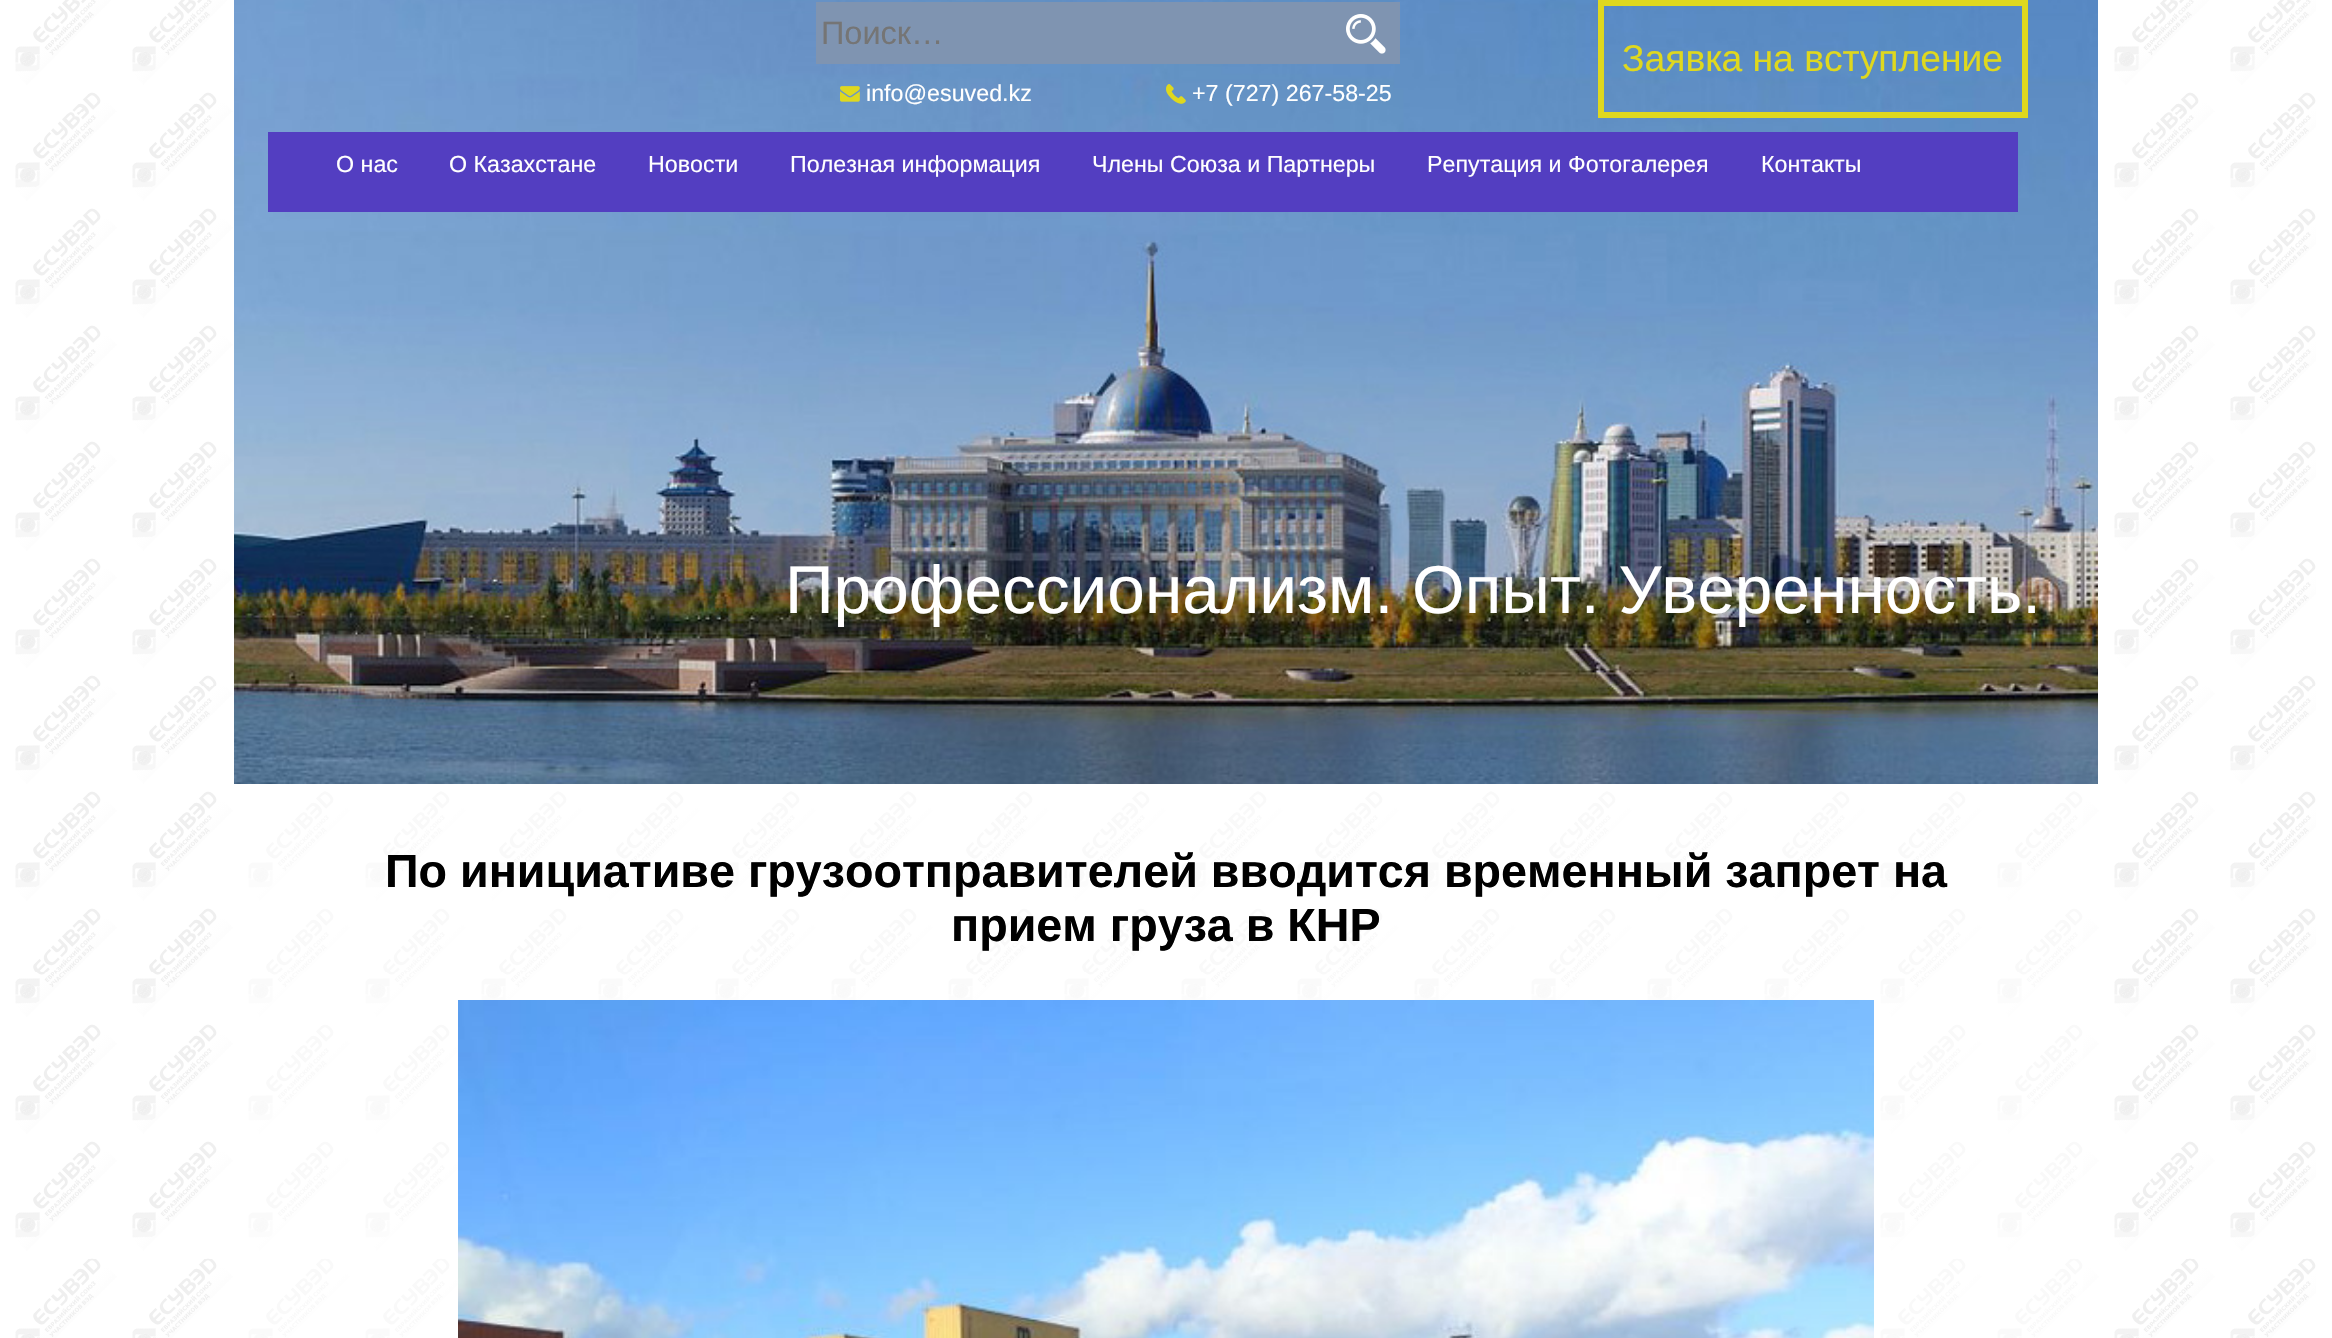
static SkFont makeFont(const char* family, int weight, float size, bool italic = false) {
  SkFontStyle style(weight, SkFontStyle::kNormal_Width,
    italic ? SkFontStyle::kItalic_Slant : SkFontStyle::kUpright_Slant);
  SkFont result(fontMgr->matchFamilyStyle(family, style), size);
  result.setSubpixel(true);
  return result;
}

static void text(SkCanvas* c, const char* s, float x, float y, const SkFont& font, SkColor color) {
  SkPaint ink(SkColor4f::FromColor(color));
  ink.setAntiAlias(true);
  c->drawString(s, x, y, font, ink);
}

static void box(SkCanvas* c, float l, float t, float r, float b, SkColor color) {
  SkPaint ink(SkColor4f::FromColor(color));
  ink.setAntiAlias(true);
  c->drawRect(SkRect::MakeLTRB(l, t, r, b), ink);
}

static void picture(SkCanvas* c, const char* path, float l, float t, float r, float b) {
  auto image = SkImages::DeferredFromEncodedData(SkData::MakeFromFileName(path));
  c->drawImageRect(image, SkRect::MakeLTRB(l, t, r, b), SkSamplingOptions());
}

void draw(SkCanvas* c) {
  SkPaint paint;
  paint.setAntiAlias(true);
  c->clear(0xffffffff);
  picture(c, "img_01.png", 15, 0, 2316, 1338);
  picture(c, "img_03.png", 234, 0, 2098, 784);
  box(c, 816, 2, 1400, 64, 0xff7f94b1);
  SkFont face1 = makeFont("Liberation Sans", 400, 32.5f);
  text(c, "Поиск…", 821, 44, face1, 0xff757575);
  picture(c, "img_02.png", 1346, 14, 1386, 54);
  paint.setStyle(SkPaint::kStroke_Style);
  paint.setStrokeWidth(6);
  paint.setColor(0xffdfd81e);
  c->drawRect(SkRect::MakeLTRB(1601, 3, 2025, 115), paint);
  SkFont face2 = makeFont("Liberation Sans", 400, 37.25f);
  text(c, "Заявка на вступление", 1622, 71, face2, 0xffdfd81e);
  SkFont face3 = makeFont("Liberation Sans", 400, 67.6f);
  text(c, "Профессионализм. Опыт. Уверенность.", 785, 613, face3, 0xffffffff);
  picture(c, "img_04.png", 840, 86, 860, 102);
  SkFont face4 = makeFont("Liberation Sans", 400, 23.25f);
  text(c, "info@esuved.kz", 866, 101, face4, 0xffffffff);
  picture(c, "img_05.png", 1166, 84, 1186, 104);
  text(c, "+7 (727) 267-58-25", 1192, 101, face4, 0xffffffff);
  box(c, 268, 132, 2018, 212, 0xff533ec1);
  text(c, "О нас", 336, 172, face4, 0xffffffff);
  text(c, "О Казахстане", 449, 172, face4, 0xffffffff);
  text(c, "Новости", 648, 172, face4, 0xffffffff);
  text(c, "Полезная информация", 790, 172, face4, 0xffffffff);
  text(c, "Члены Союза и Партнеры", 1092, 172, face4, 0xffffffff);
  text(c, "Репутация и Фотогалерея", 1427, 172, face4, 0xffffffff);
  text(c, "Контакты", 1761, 172, face4, 0xffffffff);
  box(c, 248, 792, 2083, 1338, 0x99ffffff);
  SkFont face5 = makeFont("Liberation Sans", 700, 46.65f);
  text(c, "По инициативе грузоотправителей вводится временный запрет на", 385, 887, face5, 0xff000000);
  text(c, "прием груза в КНР", 951, 941, face5, 0xff000000);
  picture(c, "img_06.png", 458, 1000, 1874, 1338);
}
